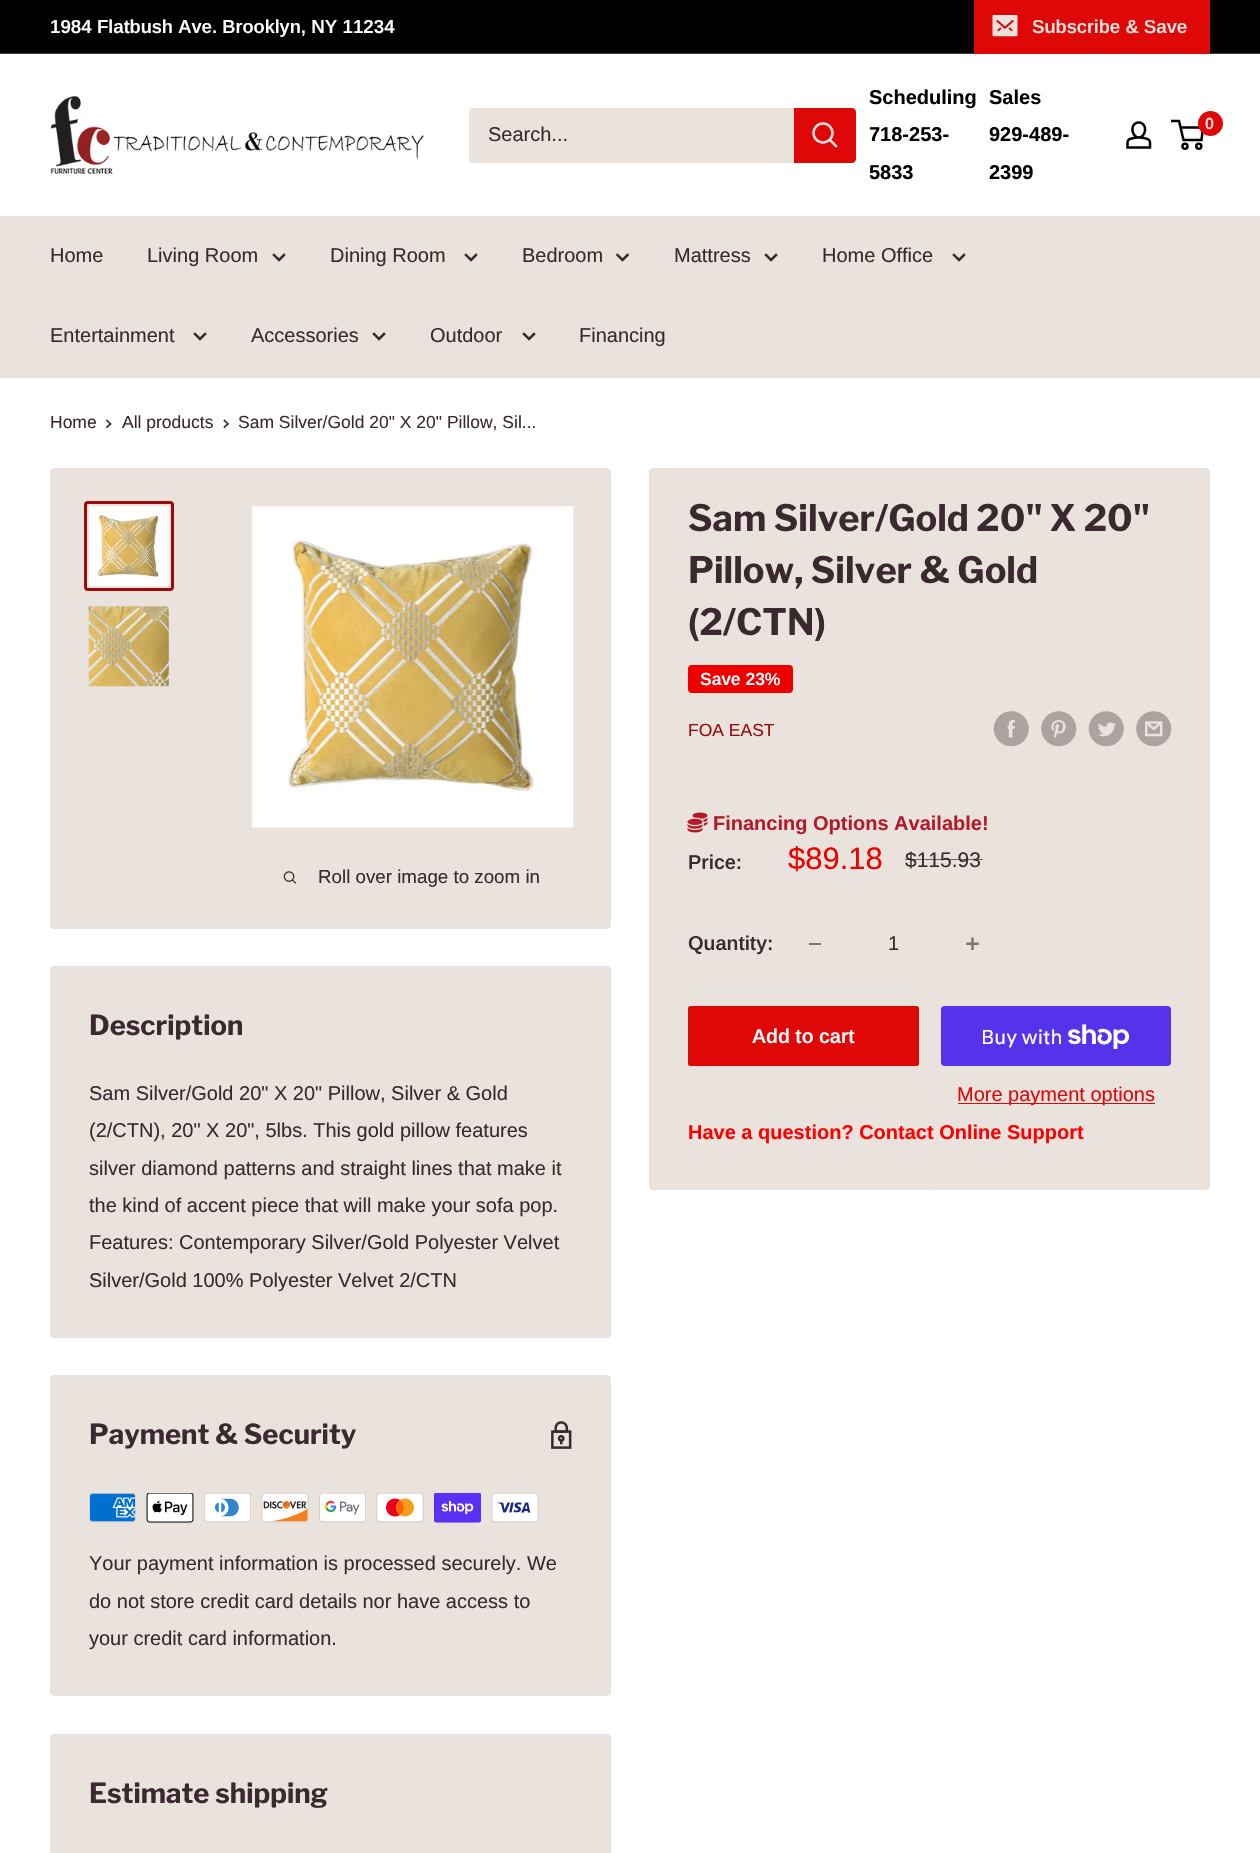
static SkFont makeFont(const char* family, int weight, float size, bool italic = false) {
  SkFontStyle style(weight, SkFontStyle::kNormal_Width,
    italic ? SkFontStyle::kItalic_Slant : SkFontStyle::kUpright_Slant);
  SkFont result(fontMgr->matchFamilyStyle(family, style), size);
  result.setSubpixel(true);
  return result;
}

static void text(SkCanvas* c, const char* s, float x, float y, const SkFont& font, SkColor color) {
  SkPaint ink(SkColor4f::FromColor(color));
  ink.setAntiAlias(true);
  c->drawString(s, x, y, font, ink);
}

static void box(SkCanvas* c, float l, float t, float r, float b, SkColor color) {
  SkPaint ink(SkColor4f::FromColor(color));
  ink.setAntiAlias(true);
  c->drawRect(SkRect::MakeLTRB(l, t, r, b), ink);
}

static void roundBox(SkCanvas* c, float l, float t, float r, float b, float radius, SkColor color) {
  SkPaint ink(SkColor4f::FromColor(color));
  ink.setAntiAlias(true);
  c->drawRoundRect(SkRect::MakeLTRB(l, t, r, b), radius, radius, ink);
}

static void picture(SkCanvas* c, const char* path, float l, float t, float r, float b) {
  auto image = SkImages::DeferredFromEncodedData(SkData::MakeFromFileName(path));
  c->drawImageRect(image, SkRect::MakeLTRB(l, t, r, b), SkSamplingOptions());
}

void draw(SkCanvas* c) {
  SkPaint paint;
  paint.setAntiAlias(true);
  c->clear(0xffffffff);
  box(c, 0, 0, 1260, 53, 0xff000000);
  box(c, 0, 53, 1260, 54, 0xff464442);
  SkFont face1 = makeFont("Arimo", 600, 18.75f);
  text(c, "1984 Flatbush Ave. Brooklyn, NY 11234", 50, 33, face1, 0xffffffff);
  box(c, 974, 0, 1210, 54, 0xffde0808);
  picture(c, "img_01.png", 992, 15, 1018, 37);
  text(c, "Subscribe & Save", 1032, 33, face1, 0xffe9e2dd);
  picture(c, "img_02.png", 50, 96, 424, 174);
  SkFont face2 = makeFont("Arimo", 700, 20);
  text(c, "Scheduling", 869, 104, face2, 0xff000000);
  text(c, "718-253-", 869, 141, face2, 0xff000000);
  text(c, "5833", 869, 179, face2, 0xff000000);
  text(c, "Sales", 989, 104, face2, 0xff000000);
  text(c, "929-489-", 989, 141, face2, 0xff000000);
  text(c, "2399", 989, 179, face2, 0xff000000);
  picture(c, "img_03.png", 1126, 121, 1152, 149);
  paint.setStyle(SkPaint::kStroke_Style);
  paint.setStrokeWidth(2.5f);
  paint.setColor(0xff000000);
  c->drawCircle(1185, 146.2f, 2.5f, paint);
  c->drawCircle(1198.8f, 146.2f, 2.5f, paint);
  c->drawPath(SkPathBuilder().moveTo(1180.5f, 127.5f).lineTo(1203, 127.5f).lineTo(1201.5f, 140).lineTo(1183.5f, 140).lineTo(1179, 121).lineTo(1171, 121).detach(), paint);
  paint.setStyle(SkPaint::kFill_Style);
  paint.setColor(0xffde0808);
  c->drawCircle(1210.5f, 123.5f, 12.5f, paint);
  SkFont face3 = makeFont("Arimo", 600, 16);
  text(c, "0", 1205, 129, face3, 0xffe9e2dd);
  roundBox(c, 469, 108, 856, 163, 4, 0xffe9e2dd);
  SkFont face4 = makeFont("Arimo", 400, 20);
  text(c, "Search...", 488, 141, face4, 0xff3a2a2f);
  c->drawPath(SkPathBuilder().moveTo(794, 108).lineTo(852, 108).cubicTo(854, 108, 856, 110, 856, 112).lineTo(856, 159).cubicTo(856, 161, 854, 163, 852, 163).lineTo(794, 163).close().detach(), paint);
  paint.setStyle(SkPaint::kStroke_Style);
  paint.setStrokeCap(SkPaint::kSquare_Cap);
  paint.setColor(0xffe9e2dd);
  c->drawPath(SkPathBuilder().moveTo(836, 146).lineTo(830, 140).detach(), paint);
  paint.setStrokeCap(SkPaint::kButt_Cap);
  c->drawCircle(823, 133, 9.5f, paint);
  box(c, 0, 216, 1260, 378, 0xffe9e2dd);
  text(c, "Home", 50, 262, face4, 0xff3a2a2f);
  text(c, "Living Room", 147, 262, face4, 0xff3a2a2f);
  paint.setStrokeCap(SkPaint::kSquare_Cap);
  paint.setColor(0xff3a2a2f);
  c->drawPath(SkPathBuilder().moveTo(284, 255).lineTo(279, 260).lineTo(274, 255).detach(), paint);
  text(c, "Dining Room", 330, 262, face4, 0xff3a2a2f);
  c->drawPath(SkPathBuilder().moveTo(476, 255).lineTo(471, 260).lineTo(466, 255).detach(), paint);
  text(c, "Bedroom", 522, 262, face4, 0xff3a2a2f);
  c->drawPath(SkPathBuilder().moveTo(627.5f, 255).lineTo(622.5f, 260).lineTo(617.5f, 255).detach(), paint);
  text(c, "Mattress", 674, 262, face4, 0xff3a2a2f);
  c->drawPath(SkPathBuilder().moveTo(776, 255).lineTo(771, 260).lineTo(766, 255).detach(), paint);
  text(c, "Home Office", 822, 262, face4, 0xff3a2a2f);
  c->drawPath(SkPathBuilder().moveTo(964, 255).lineTo(959, 260).lineTo(954, 255).detach(), paint);
  text(c, "Entertainment", 50, 342, face4, 0xff3a2a2f);
  c->drawPath(SkPathBuilder().moveTo(205, 334).lineTo(200, 339).lineTo(195, 334).detach(), paint);
  text(c, "Accessories", 251, 342, face4, 0xff3a2a2f);
  c->drawPath(SkPathBuilder().moveTo(384, 334).lineTo(379, 339).lineTo(374, 334).detach(), paint);
  text(c, "Outdoor", 430, 342, face4, 0xff3a2a2f);
  c->drawPath(SkPathBuilder().moveTo(534, 334).lineTo(529, 339).lineTo(524, 334).detach(), paint);
  text(c, "Financing", 579, 342, face4, 0xff3a2a2f);
  SkFont face5 = makeFont("Arimo", 400, 17.5f);
  text(c, "Home", 50, 428, face5, 0xff3a2a2f);
  paint.setStrokeWidth(1.7f);
  c->drawPath(SkPathBuilder().moveTo(107, 420.5f).lineTo(110.5f, 424).lineTo(107, 427).detach(), paint);
  text(c, "All products", 122, 428, face5, 0xff3a2a2f);
  c->drawPath(SkPathBuilder().moveTo(224.5f, 420.5f).lineTo(228, 424).lineTo(224.5f, 427).detach(), paint);
  text(c, "Sam Silver/Gold 20\" X 20\" Pillow, Sil...", 238, 428, face5, 0xff3a2a2f);
  paint.setStyle(SkPaint::kFill_Style);
  paint.setColor(0xffe9e2dd);
  c->drawRoundRect(SkRect::MakeLTRB(50.5f, 468.5f, 610.5f, 928.5f), 3.5f, 3.5f, paint);
  paint.setStyle(SkPaint::kStroke_Style);
  paint.setStrokeWidth(1);
  paint.setStrokeCap(SkPaint::kButt_Cap);
  paint.setColor(0xffe7e2de);
  c->drawRoundRect(SkRect::MakeLTRB(50.5f, 468.5f, 610.5f, 928.5f), 3.5f, 3.5f, paint);
  paint.setStrokeWidth(3);
  paint.setColor(0xff9b0b0b);
  c->drawRoundRect(SkRect::MakeLTRB(85.5f, 502.5f, 172.5f, 589.5f), 2.5f, 2.5f, paint);
  picture(c, "img_04.png", 88, 506, 169, 587);
  picture(c, "img_05.png", 88, 606, 169, 687);
  picture(c, "img_06.png", 251, 506, 574, 828);
  picture(c, "img_07.png", 283, 871, 297, 884);
  SkFont face6 = makeFont("Arimo", 400, 18.75f);
  text(c, "Roll over image to zoom in", 318, 883, face6, 0xff3a2a2f);
  paint.setStyle(SkPaint::kFill_Style);
  paint.setColor(0xffe9e2dd);
  c->drawRoundRect(SkRect::MakeLTRB(649.5f, 468.5f, 1209.5f, 1189.5f), 3.5f, 3.5f, paint);
  paint.setStyle(SkPaint::kStroke_Style);
  paint.setStrokeWidth(1);
  paint.setColor(0xffe7e2de);
  c->drawRoundRect(SkRect::MakeLTRB(649.5f, 468.5f, 1209.5f, 1189.5f), 3.5f, 3.5f, paint);
  SkFont face7 = makeFont("Libre Franklin", 700, 36.25f);
  text(c, "Sam Silver/Gold 20\" X 20\"", 688, 531, face7, 0xff3a2a2f);
  text(c, "Pillow, Silver & Gold", 688, 583, face7, 0xff3a2a2f);
  text(c, "(2/CTN)", 688, 635, face7, 0xff3a2a2f);
  roundBox(c, 688, 665, 793, 693, 4, 0xffee0000);
  SkFont face8 = makeFont("Arimo", 600, 17.5f);
  text(c, "Save 23%", 700, 685, face8, 0xffffffff);
  text(c, "FOA EAST", 688, 736, face5, 0xff9b0b0b);
  picture(c, "img_08.png", 993, 711, 1029, 747);
  picture(c, "img_09.png", 1041, 711, 1077, 747);
  picture(c, "img_10.png", 1088, 711, 1124, 747);
  picture(c, "img_11.png", 1136, 711, 1172, 747);
  picture(c, "img_12.png", 687, 812, 708, 833);
  text(c, "Financing Options Available!", 713, 830, face2, 0xffb11b2a);
  SkFont face9 = makeFont("Arimo", 600, 20);
  text(c, "Price:", 688, 869, face9, 0xff3a2a2f);
  SkFont face10 = makeFont("Arimo", 400, 31);
  text(c, "$89.18", 788, 869, face10, 0xffee0000);
  SkFont face11 = makeFont("Arimo", 400, 21);
  text(c, "$115.93", 905, 867, face11, 0xff3a2a2f);
  box(c, 905, 859, 983, 860, 0xb33a2a2f);
  text(c, "Quantity:", 688, 950, face9, 0xff3a2a2f);
  box(c, 809, 943, 821, 945, 0xff807475);
  text(c, "1", 888, 950, face4, 0xff3a2a2f);
  picture(c, "img_13.png", 966, 937, 979, 950);
  roundBox(c, 688, 1006, 919, 1066, 2.5f, 0xffde0808);
  text(c, "Add to cart", 752, 1043, face9, 0xffffffff);
  roundBox(c, 941, 1006, 1171, 1066, 4, 0xff5433eb);
  SkFont face12 = makeFont("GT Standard", 400, 20);
  text(c, "Buy with", 981, 1044, face12, 0xffffffff);
  picture(c, "img_14.png", 1068, 1024, 1130, 1049);
  box(c, 958, 1103, 1155, 1104, 0xffde0808);
  text(c, "More payment options", 957, 1101, face4, 0xffde0808);
  text(c, "Have a question? Contact Online Support", 688, 1139, face2, 0xffff0000);
  paint.setStyle(SkPaint::kFill_Style);
  paint.setColor(0xffe9e2dd);
  c->drawRoundRect(SkRect::MakeLTRB(50.5f, 966.5f, 610.5f, 1337.5f), 3.5f, 3.5f, paint);
  paint.setStyle(SkPaint::kStroke_Style);
  paint.setColor(0xffe7e2de);
  c->drawRoundRect(SkRect::MakeLTRB(50.5f, 966.5f, 610.5f, 1337.5f), 3.5f, 3.5f, paint);
  SkFont face13 = makeFont("Libre Franklin", 700, 27.5f);
  text(c, "Description", 89, 1035, face13, 0xff3a2a2f);
  text(c, "Sam Silver/Gold 20\" X 20\" Pillow, Silver & Gold", 89, 1100, face4, 0xff3a2a2f);
  text(c, "(2/CTN), 20\" X 20\", 5lbs. This gold pillow features", 89, 1137, face4, 0xff3a2a2f);
  text(c, "silver diamond patterns and straight lines that make it", 89, 1175, face4, 0xff3a2a2f);
  text(c, "the kind of accent piece that will make your sofa pop.", 89, 1212, face4, 0xff3a2a2f);
  text(c, "Features: Contemporary Silver/Gold Polyester Velvet", 89, 1249, face4, 0xff3a2a2f);
  text(c, "Silver/Gold 100% Polyester Velvet 2/CTN", 89, 1287, face4, 0xff3a2a2f);
  paint.setStyle(SkPaint::kFill_Style);
  paint.setColor(0xffe9e2dd);
  c->drawRoundRect(SkRect::MakeLTRB(50.5f, 1375.5f, 610.5f, 1695.5f), 3.5f, 3.5f, paint);
  paint.setStyle(SkPaint::kStroke_Style);
  paint.setColor(0xffe7e2de);
  c->drawRoundRect(SkRect::MakeLTRB(50.5f, 1375.5f, 610.5f, 1695.5f), 3.5f, 3.5f, paint);
  text(c, "Payment & Security", 89, 1444, face13, 0xff3a2a2f);
  picture(c, "img_15.png", 551, 1421, 572, 1449);
  picture(c, "img_16.png", 89, 1493, 136, 1523);
  picture(c, "img_17.png", 146, 1493, 194, 1523);
  picture(c, "img_18.png", 204, 1493, 251, 1523);
  picture(c, "img_19.png", 261, 1493, 309, 1523);
  picture(c, "img_20.png", 319, 1493, 366, 1523);
  picture(c, "img_21.png", 376, 1493, 424, 1523);
  picture(c, "img_22.png", 434, 1493, 481, 1523);
  picture(c, "img_23.png", 491, 1493, 539, 1523);
  text(c, "Your payment information is processed securely. We", 89, 1570, face4, 0xff3a2a2f);
  text(c, "do not store credit card details nor have access to", 89, 1608, face4, 0xff3a2a2f);
  text(c, "your credit card information.", 89, 1645, face4, 0xff3a2a2f);
  paint.setStyle(SkPaint::kFill_Style);
  paint.setColor(0xffe9e2dd);
  c->drawRoundRect(SkRect::MakeLTRB(50.5f, 1734.5f, 610.5f, 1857.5f), 3.5f, 3.5f, paint);
  paint.setStyle(SkPaint::kStroke_Style);
  paint.setColor(0xffe7e2de);
  c->drawRoundRect(SkRect::MakeLTRB(50.5f, 1734.5f, 610.5f, 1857.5f), 3.5f, 3.5f, paint);
  text(c, "Estimate shipping", 89, 1803, face13, 0xff3a2a2f);
}
